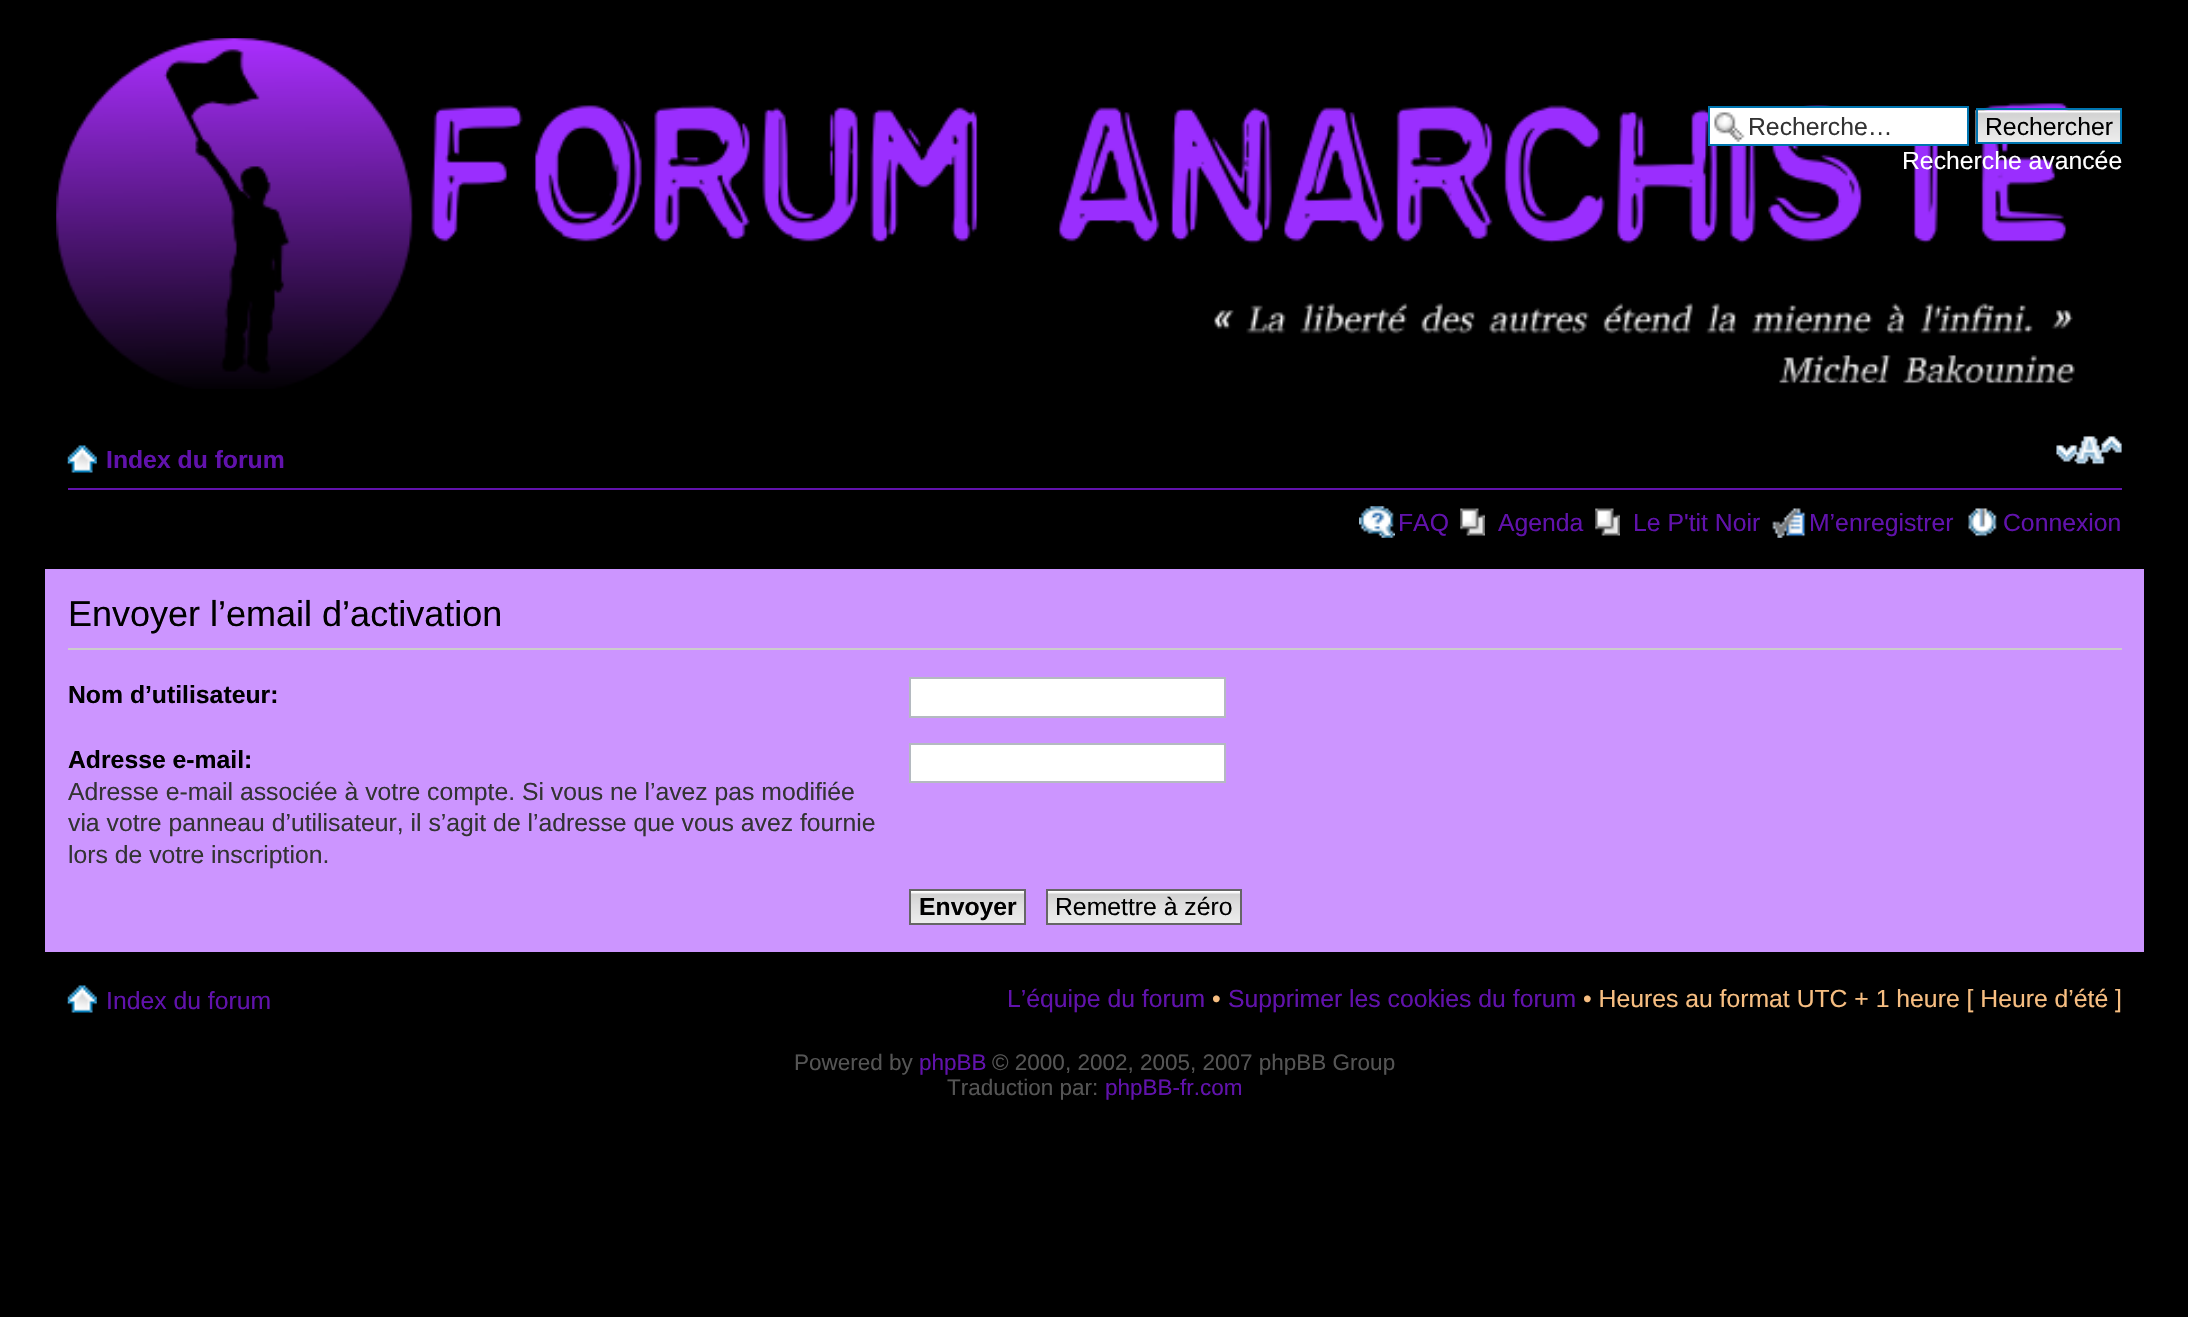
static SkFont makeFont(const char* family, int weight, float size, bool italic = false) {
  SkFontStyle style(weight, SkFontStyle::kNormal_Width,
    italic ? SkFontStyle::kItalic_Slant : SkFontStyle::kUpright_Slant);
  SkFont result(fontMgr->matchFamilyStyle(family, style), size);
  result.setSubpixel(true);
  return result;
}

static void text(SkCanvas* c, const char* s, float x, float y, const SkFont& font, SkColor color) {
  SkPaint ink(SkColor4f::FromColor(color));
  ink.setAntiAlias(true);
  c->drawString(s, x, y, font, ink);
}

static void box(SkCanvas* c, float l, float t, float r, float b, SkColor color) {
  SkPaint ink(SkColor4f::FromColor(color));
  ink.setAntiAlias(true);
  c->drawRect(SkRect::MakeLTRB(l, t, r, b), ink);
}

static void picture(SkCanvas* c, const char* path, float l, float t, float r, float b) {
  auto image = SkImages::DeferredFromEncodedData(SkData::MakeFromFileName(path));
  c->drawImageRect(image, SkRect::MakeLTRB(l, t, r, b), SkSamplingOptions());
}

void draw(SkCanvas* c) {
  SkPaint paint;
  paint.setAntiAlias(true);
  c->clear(0xff000000);
  picture(c, "img_01.png", 56, 38, 2075, 389);
  box(c, 1710, 108, 1967, 144, 0xffffffff);
  picture(c, "img_02.png", 1714, 112, 1745, 142);
  paint.setStyle(SkPaint::kStroke_Style);
  paint.setStrokeWidth(2);
  paint.setColor(0xff0075b0);
  c->drawRect(SkRect::MakeLTRB(1709, 107, 1968, 145), paint);
  SkFont face1 = makeFont("Liberation Sans", 400, 24.75f);
  text(c, "Recherche…", 1748, 135, face1, 0xff333333);
  picture(c, "img_03.png", 1975, 110, 2120, 144);
  c->drawRect(SkRect::MakeLTRB(1977, 109, 2121, 143), paint);
  text(c, "Rechercher", 1985, 135, face1, 0xff000000);
  text(c, "Recherche avancée", 1902, 169, face1, 0xffffffff);
  box(c, 68, 488, 2122, 490, 0xff6112ac);
  picture(c, "img_04.png", 67, 445, 97, 473);
  SkFont face2 = makeFont("Liberation Sans", 700, 24.75f);
  text(c, "Index du forum", 106, 468, face2, 0xff6112ac);
  picture(c, "img_05.png", 2056, 436, 2122, 465);
  picture(c, "img_06.png", 1359, 506, 1395, 538);
  text(c, "FAQ", 1398, 531, face1, 0xff6112ac);
  picture(c, "img_07.png", 1460, 508, 1485, 536);
  text(c, "Agenda", 1498, 531, face1, 0xff6112ac);
  picture(c, "img_08.png", 1595, 508, 1620, 536);
  text(c, "Le P'tit Noir", 1633, 531, face1, 0xff6112ac);
  picture(c, "img_09.png", 1772, 508, 1806, 538);
  text(c, "M’enregistrer", 1809, 531, face1, 0xff6112ac);
  picture(c, "img_10.png", 1968, 508, 1997, 537);
  text(c, "Connexion", 2003, 531, face1, 0xff6112ac);
  box(c, 45, 569, 2144, 952, 0xffcc95ff);
  box(c, 68, 648, 2122, 650, 0xffcccccc);
  SkFont face3 = makeFont("Liberation Sans", 400, 36);
  text(c, "Envoyer l’email d’activation", 68, 626, face3, 0xff000000);
  text(c, "Nom d’utilisateur:", 68, 703, face2, 0xff000000);
  paint.setStyle(SkPaint::kFill_Style);
  paint.setColor(0xffffffff);
  c->drawRect(SkRect::MakeLTRB(910, 678, 1225, 717), paint);
  paint.setStyle(SkPaint::kStroke_Style);
  paint.setColor(0xffb4bac0);
  c->drawRect(SkRect::MakeLTRB(910, 678, 1225, 717), paint);
  text(c, "Adresse e-mail:", 68, 768, face2, 0xff000000);
  text(c, "Adresse e-mail associée à votre compte. Si vous ne l’avez pas modifiée", 68, 800, face1, 0xff333333);
  text(c, "via votre panneau d’utilisateur, il s’agit de l’adresse que vous avez fournie", 68, 831, face1, 0xff333333);
  text(c, "lors de votre inscription.", 68, 863, face1, 0xff333333);
  paint.setStyle(SkPaint::kFill_Style);
  paint.setColor(0xffffffff);
  c->drawRect(SkRect::MakeLTRB(910, 744, 1225, 782), paint);
  paint.setStyle(SkPaint::kStroke_Style);
  paint.setColor(0xffb4bac0);
  c->drawRect(SkRect::MakeLTRB(910, 744, 1225, 782), paint);
  picture(c, "img_11.png", 911, 891, 1024, 923);
  paint.setColor(0xff666666);
  c->drawRect(SkRect::MakeLTRB(910, 890, 1025, 924), paint);
  text(c, "Envoyer", 919, 915, face2, 0xff000000);
  picture(c, "img_12.png", 1048, 891, 1240, 923);
  c->drawRect(SkRect::MakeLTRB(1047, 890, 1241, 924), paint);
  text(c, "Remettre à zéro", 1055, 915, face1, 0xff000000);
  picture(c, "img_04.png", 67, 985, 97, 1013);
  text(c, "Index du forum", 106, 1009, face1, 0xff6112ac);
  text(c, "L’équipe du forum", 1007, 1007, face1, 0xff6112ac);
  text(c, "•", 1212, 1007, face1, 0xfff7be81);
  text(c, "Supprimer les cookies du forum", 1228, 1007, face1, 0xff6112ac);
  text(c, "• Heures au format UTC + 1 heure [ Heure d’été ]", 1583, 1007, face1, 0xfff7be81);
  SkFont face4 = makeFont("Liberation Sans", 400, 22.5f);
  text(c, "Powered by", 794, 1070, face4, 0xff555555);
  text(c, "phpBB", 919, 1070, face4, 0xff6112ac);
  text(c, "© 2000, 2002, 2005, 2007 phpBB Group", 992, 1070, face4, 0xff555555);
  text(c, "Traduction par:", 947, 1095, face4, 0xff555555);
  text(c, "phpBB-fr.com", 1105, 1095, face4, 0xff6112ac);
}
